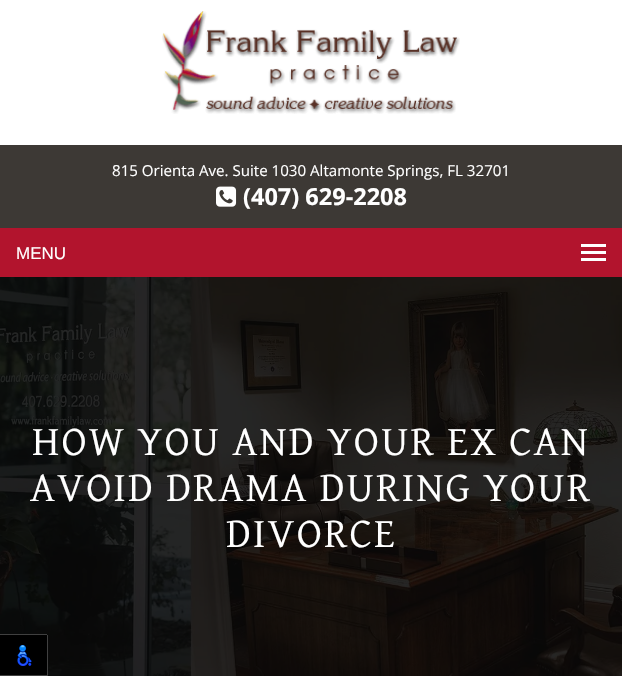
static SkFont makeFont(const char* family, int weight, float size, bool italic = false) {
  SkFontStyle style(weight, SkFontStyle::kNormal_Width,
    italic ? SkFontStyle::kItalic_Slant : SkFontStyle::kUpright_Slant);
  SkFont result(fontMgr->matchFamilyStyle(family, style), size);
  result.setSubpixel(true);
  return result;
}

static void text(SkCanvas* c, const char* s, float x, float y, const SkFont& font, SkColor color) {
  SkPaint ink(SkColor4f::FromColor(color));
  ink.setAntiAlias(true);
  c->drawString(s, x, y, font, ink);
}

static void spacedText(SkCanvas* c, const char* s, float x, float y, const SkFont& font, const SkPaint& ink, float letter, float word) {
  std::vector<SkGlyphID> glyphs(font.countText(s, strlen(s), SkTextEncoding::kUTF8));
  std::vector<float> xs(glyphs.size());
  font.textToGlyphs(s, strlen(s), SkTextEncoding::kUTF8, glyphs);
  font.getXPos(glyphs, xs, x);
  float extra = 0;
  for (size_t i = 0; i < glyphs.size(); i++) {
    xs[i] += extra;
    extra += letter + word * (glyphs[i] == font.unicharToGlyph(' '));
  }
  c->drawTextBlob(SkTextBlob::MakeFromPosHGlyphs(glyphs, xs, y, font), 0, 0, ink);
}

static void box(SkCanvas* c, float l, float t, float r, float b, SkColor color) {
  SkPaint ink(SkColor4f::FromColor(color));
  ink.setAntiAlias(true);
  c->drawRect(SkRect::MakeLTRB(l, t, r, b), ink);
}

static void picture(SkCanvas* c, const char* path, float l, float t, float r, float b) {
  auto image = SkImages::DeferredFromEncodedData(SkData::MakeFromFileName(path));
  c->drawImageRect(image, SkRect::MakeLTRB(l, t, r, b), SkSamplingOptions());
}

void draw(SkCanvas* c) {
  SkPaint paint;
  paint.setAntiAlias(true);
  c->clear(0xffffffff);
  picture(c, "img_01.png", 162, 11, 460, 114);
  box(c, 0, 145, 622, 228, 0xff3d3935);
  SkFont face1 = makeFont("Open Sans", 400, 15.1f);
  text(c, "815 Orienta Ave. Suite 1030 Altamonte Springs, FL 32701", 112, 176, face1, 0xffffffff);
  picture(c, "img_02.png", 216, 186, 237, 207);
  SkFont face2 = makeFont("Open Sans", 700, 23.5f);
  text(c, "(407) 629-2208", 243, 205, face2, 0xffffffff);
  box(c, 0, 228, 622, 277, 0xffb2142d);
  box(c, 581, 244, 606, 247, 0xffffffff);
  SkFont face3 = makeFont("Liberation Sans", 400, 17);
  text(c, "MENU", 16, 259, face3, 0xffffffff);
  box(c, 581, 251, 606, 254, 0xffffffff);
  box(c, 581, 258, 606, 261, 0xffffffff);
  picture(c, "img_03.png", 0, 277, 622, 676);
  SkFont face4 = makeFont("Gentium Plus", 400, 42);
  paint.setColor(0xffffffff);
  spacedText(c, "HOW YOU AND YOUR EX CAN", 32, 455, face4, paint, 2, 0);
  spacedText(c, "AVOID DRAMA DURING YOUR", 30, 501, face4, paint, 2, 0);
  spacedText(c, "DIVORCE", 226, 547, face4, paint, 2, 0);
  paint.setColor(0xff404040);
  c->drawPath(SkPathBuilder().moveTo(-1, 634).lineTo(-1, 675).lineTo(0, 675).lineTo(0, 635).lineTo(47, 635).lineTo(47, 634).close().detach(), paint);
  box(c, 0, 635, 47, 675, 0xff000000);
  c->save();
  c->clipRect(SkRect::MakeLTRB(0, 635, 48, 676));
  c->drawPath(SkPathBuilder(SkPathFillType::kEvenOdd).moveTo(-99, 536).lineTo(147, 536).lineTo(147, 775).lineTo(-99, 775).close().moveTo(-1, 634).lineTo(47, 634).lineTo(47, 675).lineTo(-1, 675).close().detach(), paint);
  c->restore();
  picture(c, "img_04.png", 17, 645, 32, 666);
}
